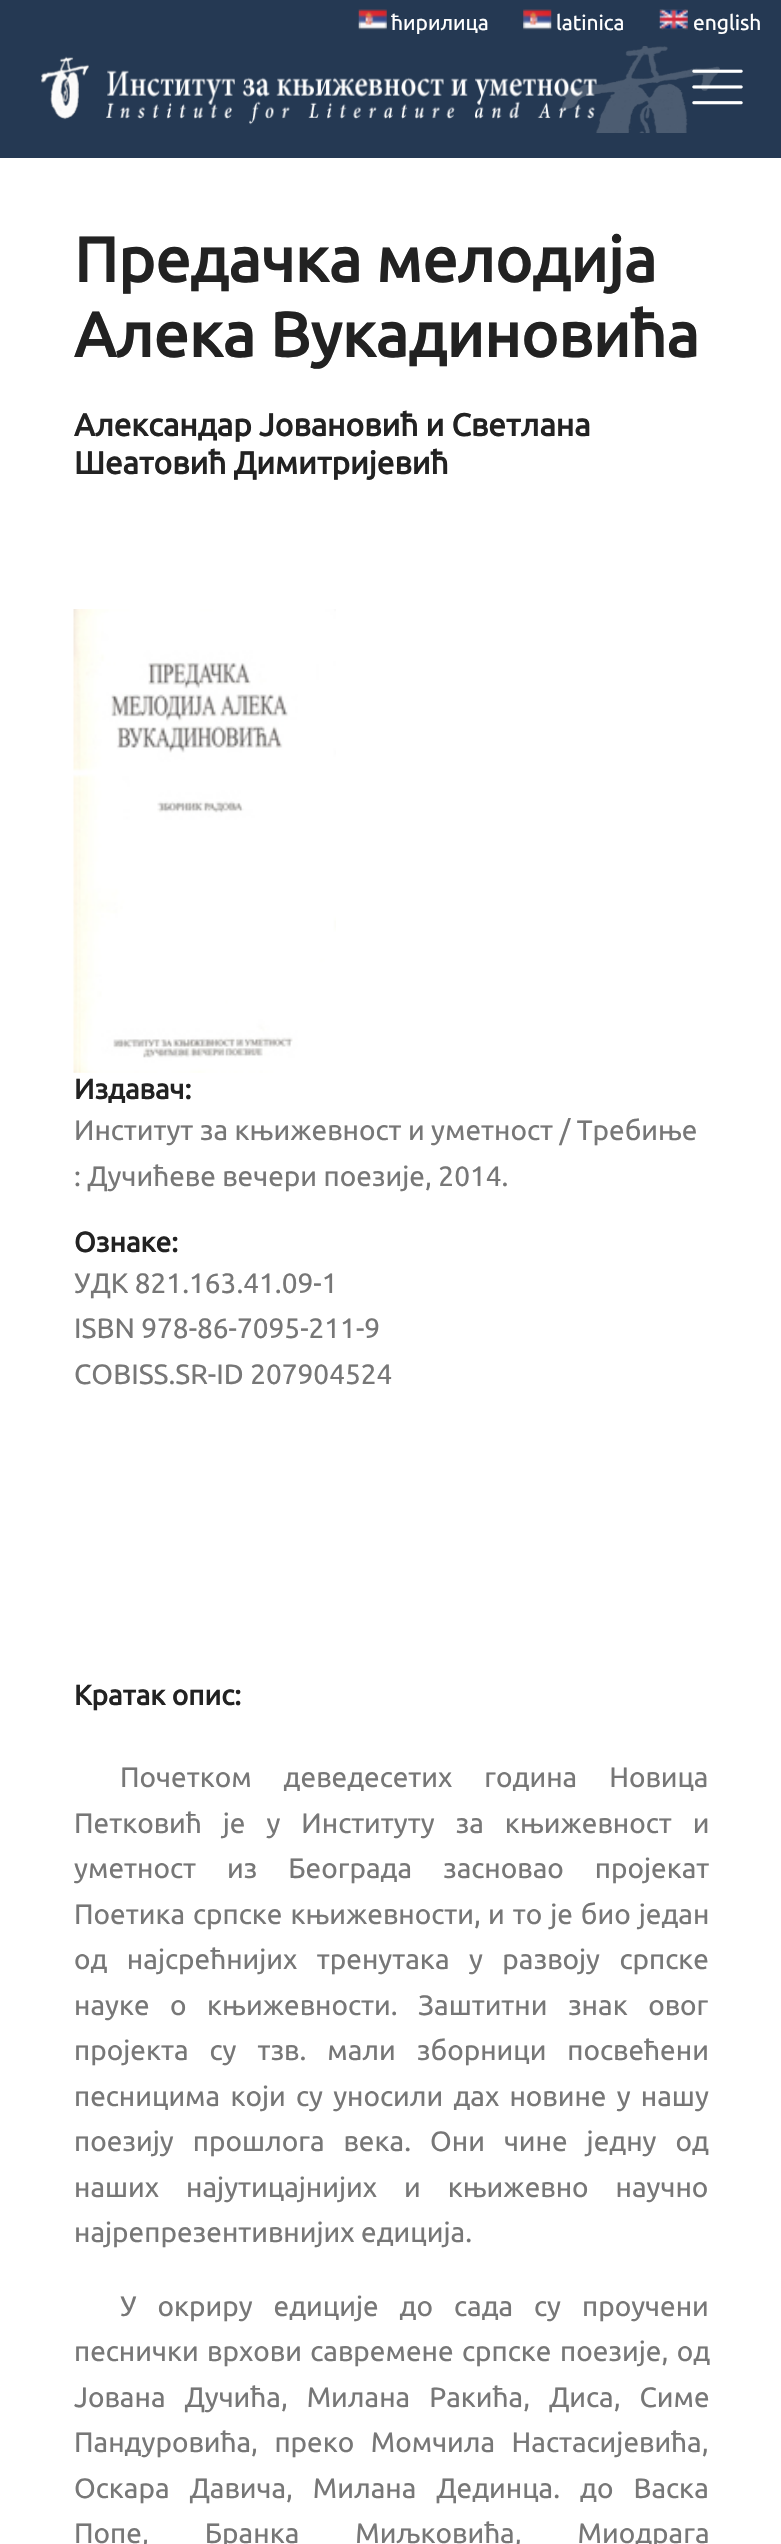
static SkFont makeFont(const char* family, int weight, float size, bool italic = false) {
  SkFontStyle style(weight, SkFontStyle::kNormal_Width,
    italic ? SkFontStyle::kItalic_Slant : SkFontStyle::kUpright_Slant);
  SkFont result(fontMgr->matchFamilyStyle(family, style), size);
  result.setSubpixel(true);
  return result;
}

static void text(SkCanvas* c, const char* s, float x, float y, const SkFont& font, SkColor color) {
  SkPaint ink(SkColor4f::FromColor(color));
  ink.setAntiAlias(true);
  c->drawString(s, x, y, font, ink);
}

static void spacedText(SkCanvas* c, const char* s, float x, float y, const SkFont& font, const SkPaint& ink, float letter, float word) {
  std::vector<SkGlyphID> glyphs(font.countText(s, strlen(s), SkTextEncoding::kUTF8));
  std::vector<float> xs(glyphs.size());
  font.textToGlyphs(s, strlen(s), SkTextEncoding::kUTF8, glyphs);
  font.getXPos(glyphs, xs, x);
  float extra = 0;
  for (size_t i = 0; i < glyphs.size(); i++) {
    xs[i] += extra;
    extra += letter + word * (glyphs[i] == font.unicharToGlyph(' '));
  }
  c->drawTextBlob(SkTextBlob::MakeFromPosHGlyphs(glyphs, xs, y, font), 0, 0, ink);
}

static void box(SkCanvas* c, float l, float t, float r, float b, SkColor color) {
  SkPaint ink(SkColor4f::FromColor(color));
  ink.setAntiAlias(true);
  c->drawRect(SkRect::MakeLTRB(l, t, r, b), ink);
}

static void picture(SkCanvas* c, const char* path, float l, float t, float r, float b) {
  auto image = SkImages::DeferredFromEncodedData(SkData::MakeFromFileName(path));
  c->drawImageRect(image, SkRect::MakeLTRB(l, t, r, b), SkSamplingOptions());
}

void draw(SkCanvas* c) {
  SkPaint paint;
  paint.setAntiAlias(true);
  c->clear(0xffffffff);
  box(c, 0, 0, 781, 158, 0xff253953);
  picture(c, "img_01.png", 358, 9, 387, 30);
  SkFont face1 = makeFont("Ubuntu", 400, 21);
  text(c, "ћирилица", 391, 30, face1, 0xffffffff);
  picture(c, "img_02.png", 523, 9, 552, 30);
  text(c, "latinica", 556, 30, face1, 0xffffffff);
  picture(c, "img_03.png", 659, 9, 688, 30);
  text(c, "english", 693, 30, face1, 0xffffffff);
  picture(c, "img_04.png", 562, 46, 720, 133);
  picture(c, "img_05.png", 41, 56, 597, 125);
  picture(c, "img_06.png", 692, 69, 743, 105);
  SkFont face2 = makeFont("Ubuntu", 700, 63);
  text(c, "Предачка мелодија", 74, 282, face2, 0xff222222);
  text(c, "Алека Вукадиновића", 74, 357, face2, 0xff222222);
  SkFont face3 = makeFont("Ubuntu", 700, 31.5f);
  text(c, "Александар Јовановић и Светлана", 74, 436, face3, 0xff222222);
  text(c, "Шеатовић Димитријевић", 74, 474, face3, 0xff222222);
  picture(c, "img_07.png", 73, 609, 336, 1073);
  SkFont face4 = makeFont("Ubuntu", 700, 28);
  text(c, "Издавач:", 74, 1099, face4, 0xff222222);
  SkFont face5 = makeFont("Ubuntu", 400, 28);
  text(c, "Институт за књижевност и уметност / Требиње", 74, 1140, face5, 0xff777777);
  text(c, ": Дучићеве вечери поезије, 2014.", 74, 1186, face5, 0xff777777);
  text(c, "Ознаке:", 74, 1252, face4, 0xff222222);
  text(c, "УДК 821.163.41.09-1", 74, 1293, face5, 0xff777777);
  text(c, "ISBN 978-86-7095-211-9", 74, 1338, face5, 0xff777777);
  text(c, "COBISS.SR-ID 207904524", 74, 1384, face5, 0xff777777);
  text(c, "Кратак опис:", 74, 1705, face4, 0xff222222);
  paint.setColor(0xff777777);
  spacedText(c, "Почетком деведесетих година Новица", 120, 1787, face5, paint, 0, 25.5f);
  spacedText(c, "Петковић је у Институту за књижевност и", 74, 1833, face5, paint, 0, 14.5f);
  spacedText(c, "уметност из Београда засновао пројекат", 74, 1878, face5, paint, 0, 24.5f);
  spacedText(c, "Поетика српске књижевности,", 74, 1924, face5, paint, 0, 1.5f);
  spacedText(c, "и то је био један", 488, 1924, face5, paint, 0, 1.5f);
  spacedText(c, "од најсрећнијих тренутака у развоју српске", 74, 1969, face5, paint, 0, 13);
  spacedText(c, "науке о књижевности. Заштитни знак овог", 74, 2015, face5, paint, 0, 14);
  spacedText(c, "пројекта су тзв. мали зборници посвећени", 74, 2060, face5, paint, 0, 14.5f);
  spacedText(c, "песницима који су уносили дах новине у нашу", 74, 2106, face5, paint, 0, 3.75f);
  spacedText(c, "поезију прошлога века. Они чине једну од", 74, 2151, face5, paint, 0, 12.5f);
  spacedText(c, "наших најутицајнијих и књижевно научно", 74, 2197, face5, paint, 0, 20.5f);
  text(c, "најрепрезентивнијих едиција.", 74, 2242, face5, 0xff777777);
  spacedText(c, "У окриру едиције до сада су проучени", 120, 2316, face5, paint, 0, 14.5f);
  spacedText(c, "песнички врхови савремене српске поезије, од", 74, 2361, face5, paint, 0, 2);
  spacedText(c, "Јована Дучића, Милана Ракића, Диса, Симе", 74, 2407, face5, paint, 0, 12.5f);
  spacedText(c, "Пандуровића, преко Момчила Настасијевића,", 74, 2452, face5, paint, 0, 10);
  spacedText(c, "Оскара Давича, Милана Дединца. до Васка", 74, 2498, face5, paint, 0, 13.5f);
  spacedText(c, "Попе, Бранка Миљковића, Миодрага", 74, 2543, face5, paint, 0, 49.5f);
}
